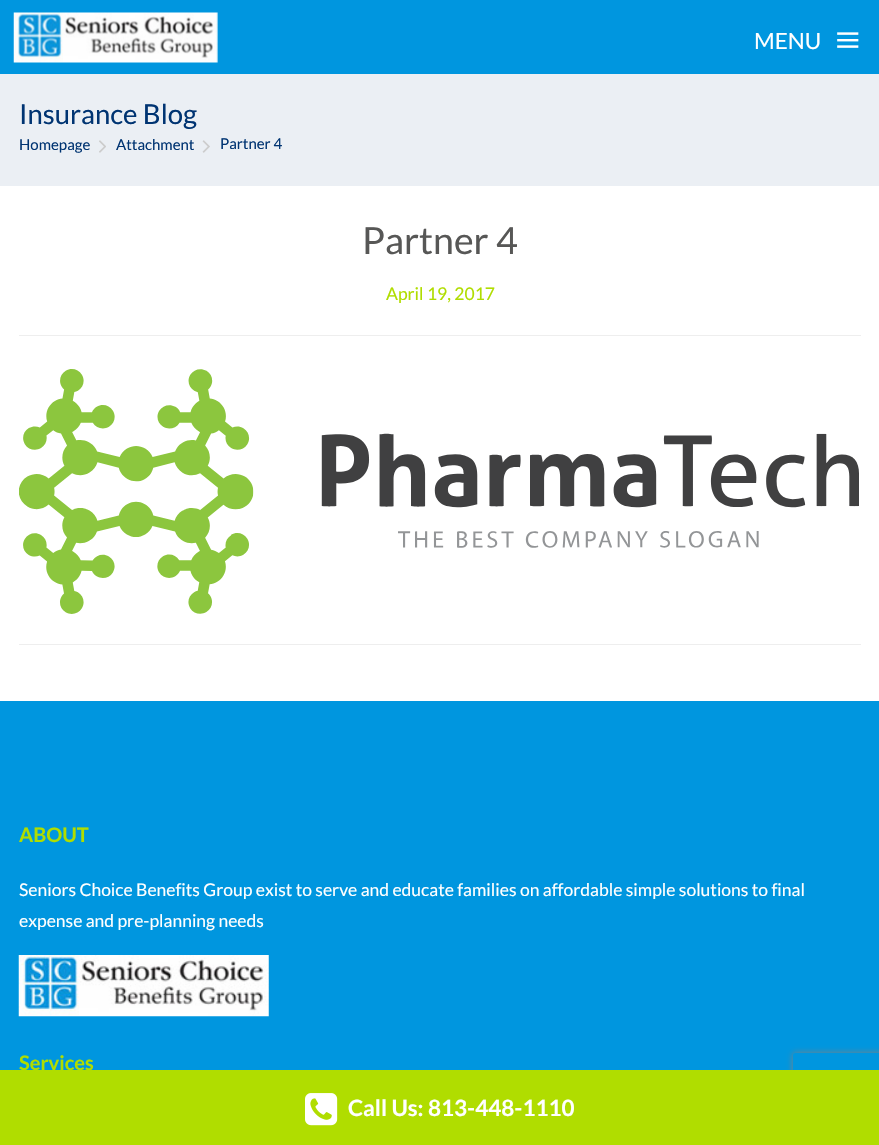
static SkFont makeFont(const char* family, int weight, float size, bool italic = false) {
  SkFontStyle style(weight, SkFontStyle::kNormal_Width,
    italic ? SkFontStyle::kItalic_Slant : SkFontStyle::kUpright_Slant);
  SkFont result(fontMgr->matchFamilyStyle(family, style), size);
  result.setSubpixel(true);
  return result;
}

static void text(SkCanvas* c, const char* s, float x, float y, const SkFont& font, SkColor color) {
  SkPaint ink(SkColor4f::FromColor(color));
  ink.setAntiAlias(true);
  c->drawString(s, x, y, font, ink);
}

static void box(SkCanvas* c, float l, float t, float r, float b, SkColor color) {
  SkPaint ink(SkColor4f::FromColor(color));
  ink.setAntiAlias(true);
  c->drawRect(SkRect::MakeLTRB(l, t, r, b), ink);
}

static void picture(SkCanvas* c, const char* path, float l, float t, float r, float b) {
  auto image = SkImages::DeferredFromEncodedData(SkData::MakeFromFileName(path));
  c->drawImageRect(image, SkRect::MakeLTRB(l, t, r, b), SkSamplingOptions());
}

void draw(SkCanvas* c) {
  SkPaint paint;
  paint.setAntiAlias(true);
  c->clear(0xffffffff);
  box(c, 0, 0, 879, 74, 0xff0096df);
  picture(c, "img_01.png", 13, 12, 218, 63);
  SkFont face1 = makeFont("Lato", 400, 22.5f);
  text(c, "MENU", 754, 49, face1, 0xffffffff);
  SkFont face2 = makeFont("Liberation Serif", 400, 45);
  text(c, "≡", 835, 55, face2, 0xffffffff);
  box(c, 0, 74, 879, 186, 0xffebeff4);
  SkFont face3 = makeFont("Lato", 400, 27.5f);
  text(c, "Insurance Blog", 19, 124, face3, 0xff003472);
  SkFont face4 = makeFont("Lato", 400, 15);
  text(c, "Homepage", 19, 150, face4, 0xff003472);
  picture(c, "img_02.png", 99, 140, 106, 153);
  text(c, "Attachment", 116, 150, face4, 0xff003472);
  picture(c, "img_03.png", 202, 140, 210, 153);
  text(c, "Partner 4", 220, 149, face4, 0xff003472);
  SkFont face5 = makeFont("Lato", 400, 37.5f);
  text(c, "Partner 4", 362, 254, face5, 0xff575756);
  SkFont face6 = makeFont("Lato", 400, 17.5f);
  text(c, "April 19, 2017", 386, 300, face6, 0xffb0dd00);
  box(c, 19, 335, 861, 336, 0xffeeeeee);
  picture(c, "img_04.png", 19, 369, 859, 614);
  box(c, 19, 644, 861, 645, 0xffeeeeee);
  box(c, 0, 701, 879, 1070, 0xff0096df);
  SkFont face7 = makeFont("Lato", 700, 20);
  text(c, "ABOUT", 19, 842, face7, 0xffb0dd00);
  text(c, "Seniors Choice Benefits Group exist to serve and educate families on affordable simple solutions to final", 19, 896, face6, 0xffffffff);
  text(c, "expense and pre-planning needs", 19, 927, face6, 0xffffffff);
  picture(c, "img_05.png", 18, 955, 269, 1017);
  text(c, "Services", 19, 1070, face7, 0xffb0dd00);
  c->save();
  c->clipPath(SkPathBuilder(SkPathFillType::kEvenOdd).moveTo(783, 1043).lineTo(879, 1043).lineTo(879, 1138).lineTo(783, 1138).close().moveTo(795.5f, 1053).lineTo(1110.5f, 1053).cubicTo(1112, 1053, 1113, 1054, 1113, 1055.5f).lineTo(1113, 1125.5f).cubicTo(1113, 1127, 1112, 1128, 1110.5f, 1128).lineTo(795.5f, 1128).cubicTo(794, 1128, 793, 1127, 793, 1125.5f).lineTo(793, 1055.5f).cubicTo(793, 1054, 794, 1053, 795.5f, 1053).close().detach(), true);
  paint.setColor(0xff808080);
  paint.setMaskFilter(SkMaskFilter::MakeBlur(kNormal_SkBlurStyle, 3));
  c->drawRoundRect(SkRect::MakeLTRB(793, 1053, 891, 1128), 2.5f, 2.5f, paint);
  paint.setMaskFilter(nullptr);
  c->restore();
  box(c, 0, 1070, 879, 1145, 0xffb0dd00);
  picture(c, "img_06.png", 305, 1093, 338, 1126);
  SkFont face8 = makeFont("Lato", 700, 22.5f);
  text(c, "Call Us: 813-448-1110", 348, 1116, face8, 0xffffffff);
}
